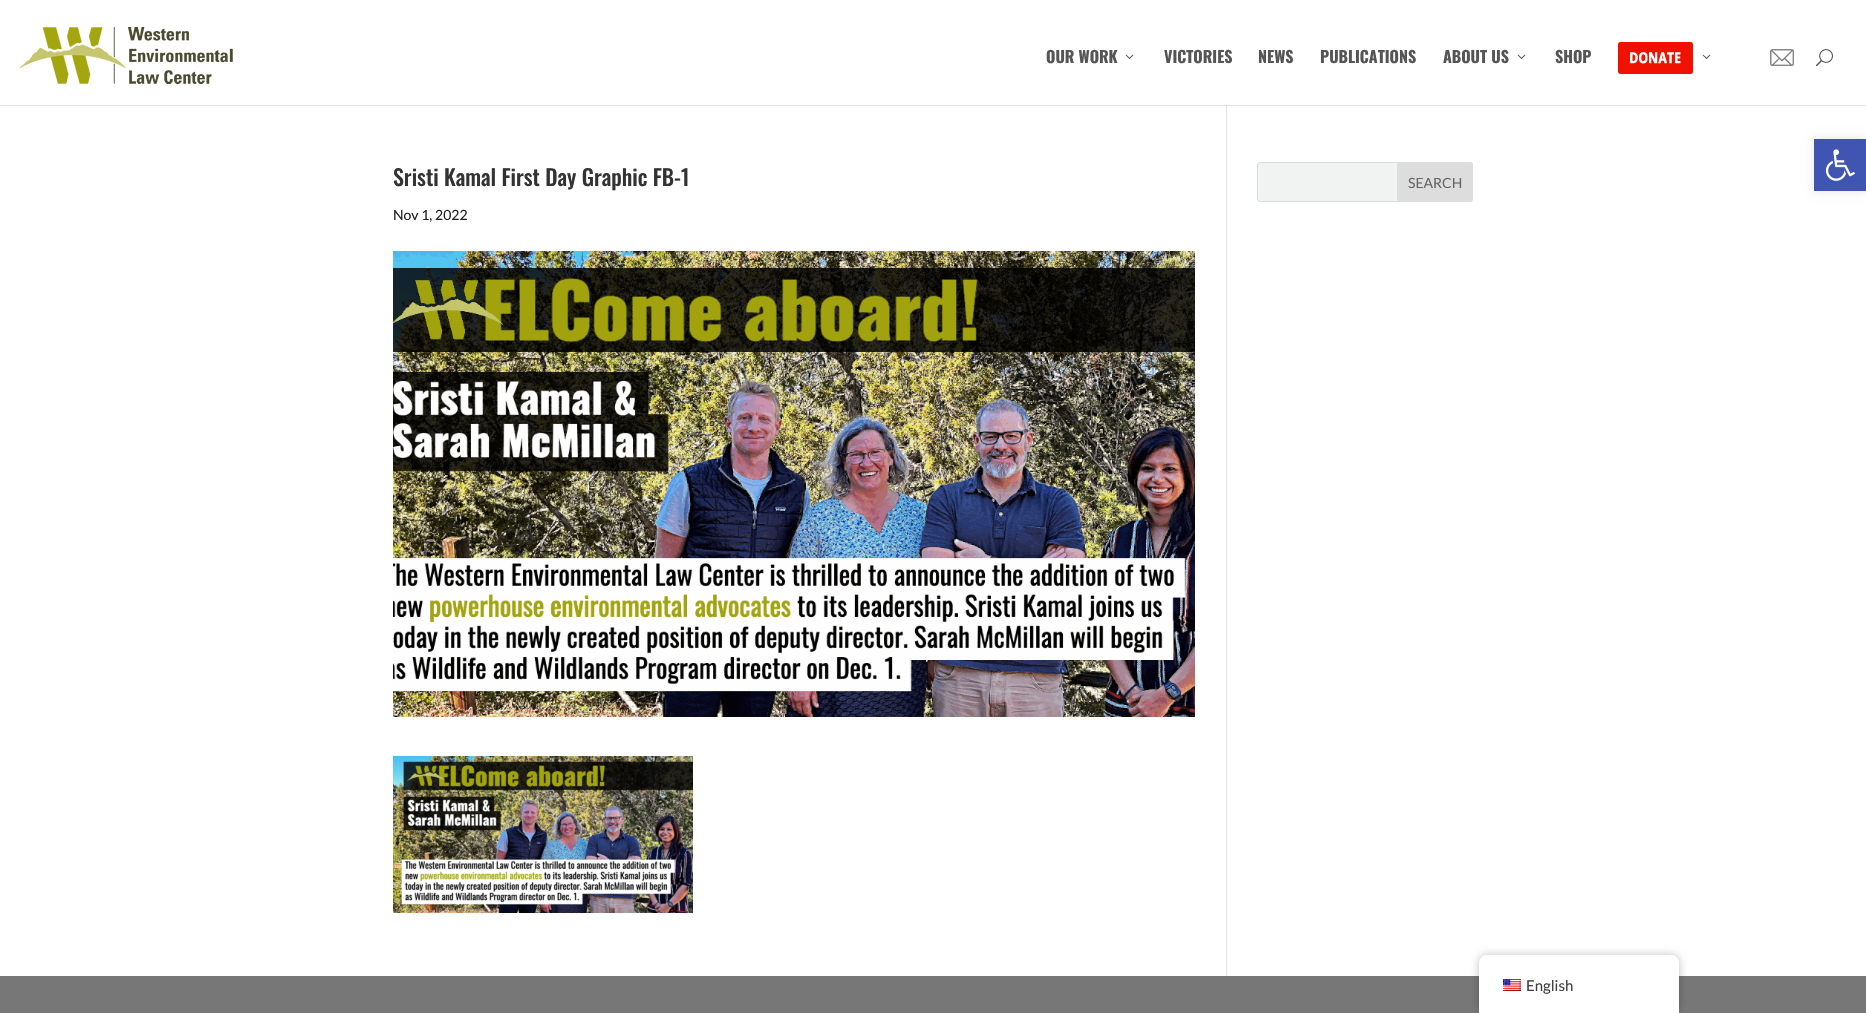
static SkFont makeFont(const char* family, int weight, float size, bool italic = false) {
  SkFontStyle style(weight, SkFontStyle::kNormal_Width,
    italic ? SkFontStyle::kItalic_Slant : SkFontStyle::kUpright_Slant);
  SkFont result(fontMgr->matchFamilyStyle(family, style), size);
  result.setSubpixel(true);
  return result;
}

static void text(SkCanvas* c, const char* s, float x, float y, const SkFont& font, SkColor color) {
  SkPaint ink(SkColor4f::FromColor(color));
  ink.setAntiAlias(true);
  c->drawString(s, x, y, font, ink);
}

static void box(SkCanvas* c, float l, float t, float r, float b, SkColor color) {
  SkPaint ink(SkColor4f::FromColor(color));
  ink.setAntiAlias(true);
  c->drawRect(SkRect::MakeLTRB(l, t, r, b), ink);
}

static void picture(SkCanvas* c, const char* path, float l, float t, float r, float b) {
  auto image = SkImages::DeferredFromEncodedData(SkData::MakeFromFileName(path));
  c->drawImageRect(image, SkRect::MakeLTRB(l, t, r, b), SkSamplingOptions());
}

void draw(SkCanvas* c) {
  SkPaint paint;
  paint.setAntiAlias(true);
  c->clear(0xffffffff);
  box(c, 0, 105, 1866, 106, 0xffe6e6e6);
  box(c, 1226, 104, 1227, 976, 0xffe2e2e2);
  box(c, 1226, 104, 1227, 105, 0xffffffff);
  picture(c, "img_01.png", 19, 27, 233, 84);
  SkFont face1 = makeFont("Oswald", 700, 16);
  text(c, "OUR WORK", 1046, 63, face1, 0xff555555);
  picture(c, "img_02.png", 1125, 54, 1134, 59);
  text(c, "VICTORIES", 1164, 63, face1, 0xff555555);
  text(c, "NEWS", 1258, 63, face1, 0xff555555);
  text(c, "PUBLICATIONS", 1320, 63, face1, 0xff555555);
  text(c, "ABOUT US", 1443, 63, face1, 0xff555555);
  picture(c, "img_02.png", 1517, 54, 1526, 59);
  text(c, "SHOP", 1555, 63, face1, 0xff555555);
  picture(c, "img_03.png", 1618, 42, 1693, 74);
  picture(c, "img_02.png", 1702, 54, 1711, 59);
  picture(c, "img_04.png", 1770, 49, 1794, 66);
  picture(c, "img_05.png", 1816, 49, 1833, 67);
  box(c, 1226, 105, 1227, 106, 0xffcbcbcb);
  SkFont face2 = makeFont("Oswald", 500, 22);
  text(c, "Sristi Kamal First Day Graphic FB-1", 393, 186, face2, 0xff333333);
  SkFont face3 = makeFont("Lato", 400, 14);
  text(c, "Nov 1, 2022", 393, 220, face3, 0xff222222);
  picture(c, "img_06.png", 393, 251, 1195, 717);
  picture(c, "img_07.png", 393, 756, 693, 913);
  paint.setColor(0xfff1f3f2);
  c->drawRoundRect(SkRect::MakeLTRB(1257.5f, 162.5f, 1472.5f, 201.5f), 2.5f, 2.5f, paint);
  paint.setStyle(SkPaint::kStroke_Style);
  paint.setStrokeWidth(1);
  paint.setColor(0xffdddddd);
  c->drawRoundRect(SkRect::MakeLTRB(1257.5f, 162.5f, 1472.5f, 201.5f), 2.5f, 2.5f, paint);
  paint.setStyle(SkPaint::kFill_Style);
  c->drawRoundRect(SkRect::MakeLTRB(1397.5f, 162.5f, 1472.5f, 201.5f), 2.5f, 2.5f, paint);
  paint.setStyle(SkPaint::kStroke_Style);
  c->drawRoundRect(SkRect::MakeLTRB(1397.5f, 162.5f, 1472.5f, 201.5f), 2.5f, 2.5f, paint);
  text(c, "SEARCH", 1408, 188, face3, 0xff666666);
  box(c, 0, 976, 1866, 1013, 0xff777777);
  paint.setStyle(SkPaint::kFill_Style);
  paint.setColor(0x1a000000);
  paint.setMaskFilter(SkMaskFilter::MakeBlur(kNormal_SkBlurStyle, 5));
  c->drawRect(SkRect::MakeLTRB(1814, 139, 1866, 191), paint);
  paint.setMaskFilter(nullptr);
  box(c, 1814, 139, 1866, 191, 0xff4054b2);
  picture(c, "img_08.png", 1825, 149, 1855, 181);
  paint.setColor(0x40000000);
  paint.setMaskFilter(SkMaskFilter::MakeBlur(kNormal_SkBlurStyle, 4));
  c->drawRoundRect(SkRect::MakeLTRB(1479, 955, 1679, 1013), 8, 8, paint);
  paint.setMaskFilter(nullptr);
  paint.setColor(0xffffffff);
  c->drawPath(SkPathBuilder().moveTo(1487, 955).lineTo(1671, 955).cubicTo(1675.5f, 955, 1679, 958.5f, 1679, 963).lineTo(1679, 1013).lineTo(1479, 1013).lineTo(1479, 963).cubicTo(1479, 958.5f, 1482.5f, 955, 1487, 955).close().detach(), paint);
  picture(c, "img_09.png", 1503, 979, 1521, 991);
  SkFont face4 = makeFont("Lato", 400, 15);
  text(c, "English", 1526, 991, face4, 0xff404040);
}
